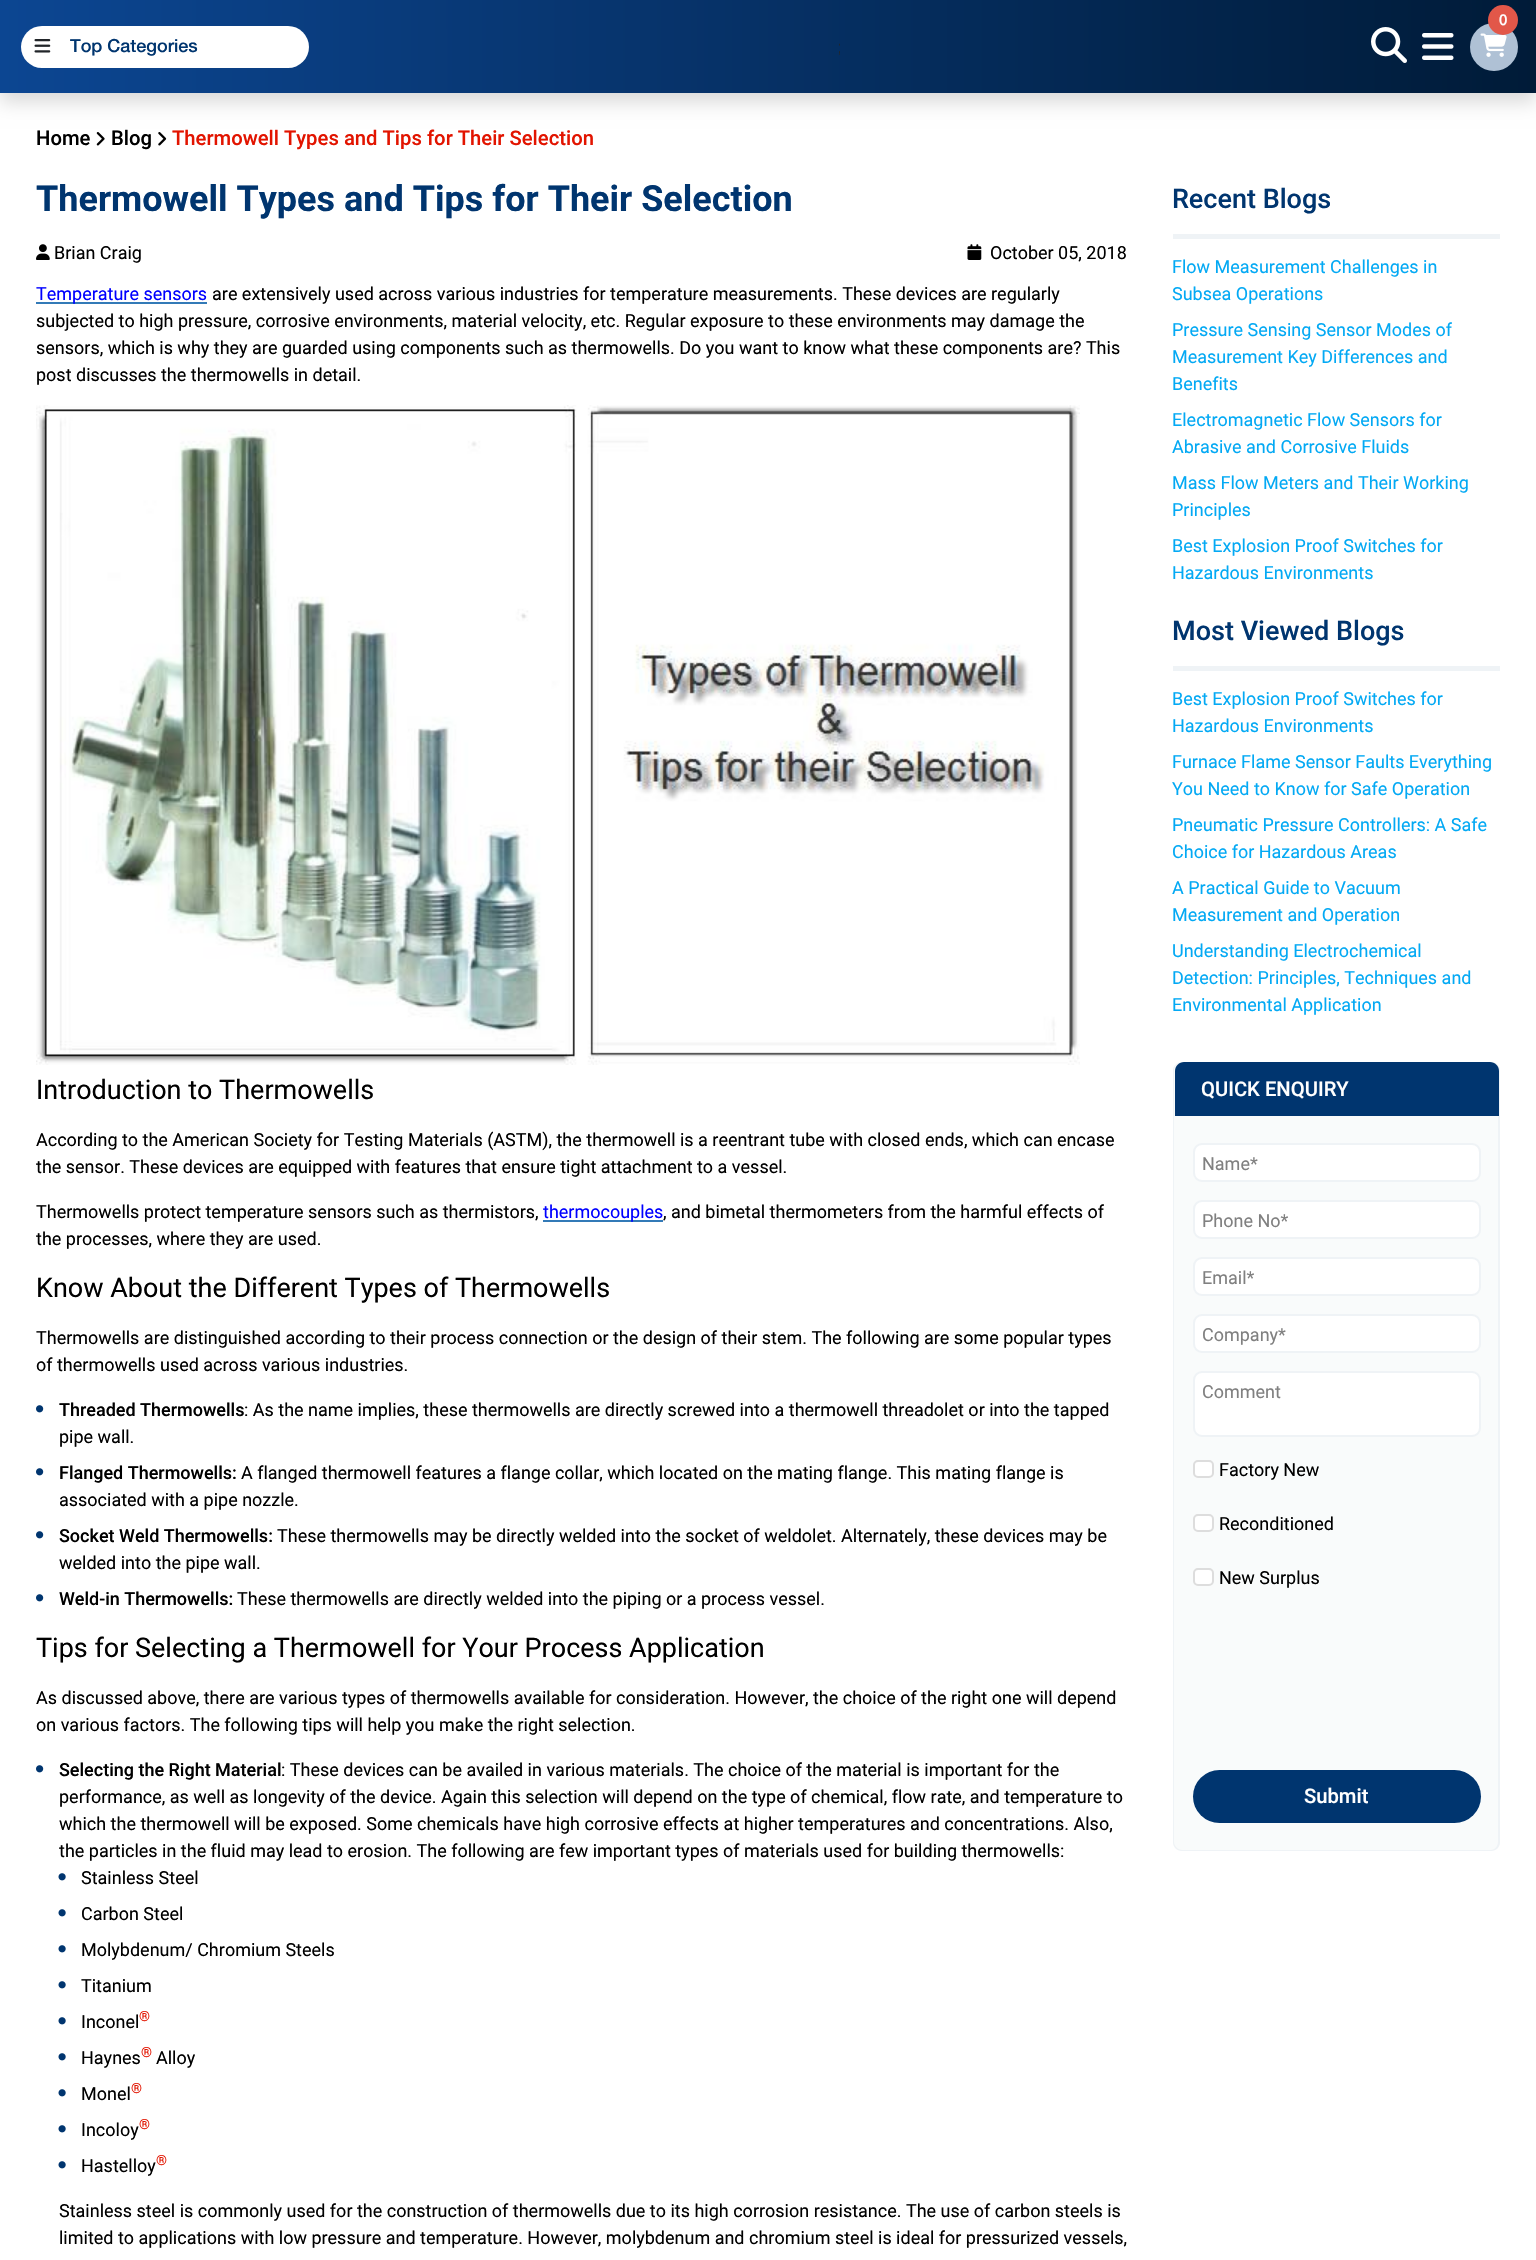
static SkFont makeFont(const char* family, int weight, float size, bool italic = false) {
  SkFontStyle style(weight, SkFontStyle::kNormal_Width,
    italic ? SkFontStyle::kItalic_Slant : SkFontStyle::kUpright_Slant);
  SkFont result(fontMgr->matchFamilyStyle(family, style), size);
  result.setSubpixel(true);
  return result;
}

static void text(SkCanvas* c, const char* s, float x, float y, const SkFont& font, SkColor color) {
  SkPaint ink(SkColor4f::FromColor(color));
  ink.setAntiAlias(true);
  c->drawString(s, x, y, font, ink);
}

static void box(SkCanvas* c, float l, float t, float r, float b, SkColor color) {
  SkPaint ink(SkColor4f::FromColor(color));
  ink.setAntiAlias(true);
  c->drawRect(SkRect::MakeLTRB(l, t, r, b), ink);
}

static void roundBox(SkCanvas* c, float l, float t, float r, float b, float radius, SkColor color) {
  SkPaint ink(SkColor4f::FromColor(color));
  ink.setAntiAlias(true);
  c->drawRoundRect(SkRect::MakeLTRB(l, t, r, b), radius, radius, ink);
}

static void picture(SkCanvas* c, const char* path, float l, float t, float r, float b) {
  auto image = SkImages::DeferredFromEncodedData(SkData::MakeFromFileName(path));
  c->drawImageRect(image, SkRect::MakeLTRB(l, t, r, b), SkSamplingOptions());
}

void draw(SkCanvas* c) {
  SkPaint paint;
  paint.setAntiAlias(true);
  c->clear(0xffffffff);
  paint.setColor(0x26000000);
  paint.setMaskFilter(SkMaskFilter::MakeBlur(kNormal_SkBlurStyle, 9));
  c->drawRect(SkRect::MakeLTRB(0, 9, 1536, 102), paint);
  paint.setMaskFilter(nullptr);
  {
    const SkColor colors[] = {0xff0c4692, 0xff001b38};
    const float stops[] = {0, 1};
    const SkPoint ends[] = {{0, 47}, {1536, 46}};
    paint.setShader(SkGradientShader::MakeLinear(ends, colors, stops, 2, SkTileMode::kClamp));
    paint.setAlpha(255);
  }
  c->drawRect(SkRect::MakeLTRB(0, 0, 1536, 93), paint);
  paint.setShader(nullptr);
  paint.setColor(0xffafc1d5);
  c->drawCircle(1494, 47, 24, paint);
  picture(c, "img_01.png", 1480, 33, 1507, 57);
  paint.setColor(0xffe25749);
  c->drawCircle(1503, 20, 15, paint);
  SkFont face1 = makeFont("Helvetica Neue", 500, 15);
  text(c, "0", 1499, 25, face1, 0xffffffff);
  picture(c, "img_02.png", 1371, 27, 1407, 63);
  picture(c, "img_03.png", 1422, 33, 1454, 60);
  roundBox(c, 21, 26, 309, 68, 21, 0xffffffff);
  picture(c, "img_04.png", 34, 39, 51, 53);
  SkFont face2 = makeFont("Helvetica Neue", 500, 18);
  text(c, "Top Categories", 70, 52, face2, 0xff00356f);
  SkFont face3 = makeFont("Helvetica Neue", 100, 18);
  text(c, ";", 837, 53, face3, 0xff212529);
  SkFont face4 = makeFont("Roboto", 500, 20.25f);
  text(c, "Home", 36, 145, face4, 0xff000000);
  picture(c, "img_05.png", 96, 132, 105, 146);
  text(c, "Blog", 111, 145, face4, 0xff000000);
  picture(c, "img_06.png", 158, 132, 167, 146);
  text(c, "Thermowell Types and Tips for Their Selection", 172, 145, face4, 0xffe21400);
  SkFont face5 = makeFont("Roboto", 700, 36);
  text(c, "Thermowell Types and Tips for Their Selection", 36, 211, face5, 0xff00356f);
  picture(c, "img_07.png", 36, 244, 50, 260);
  SkFont face6 = makeFont("Roboto", 400, 18);
  text(c, "Brian Craig", 54, 259, face6, 0xff000000);
  picture(c, "img_08.png", 967, 244, 982, 260);
  text(c, "October 05, 2018", 990, 259, face6, 0xff000000);
  box(c, 36, 302, 207, 304, 0xff337ab7);
  text(c, "Temperature sensors", 36, 300, face6, 0xff0000ff);
  text(c, "are extensively used across various industries for temperature measurements. These devices are regularly", 212, 300, face6, 0xff000000);
  text(c, "subjected to high pressure, corrosive environments, material velocity, etc. Regular exposure to these environments may damage the", 36, 327, face6, 0xff000000);
  text(c, "sensors, which is why they are guarded using components such as thermowells. Do you want to know what these components are? This", 36, 354, face6, 0xff000000);
  text(c, "post discusses the thermowells in detail.", 36, 381, face6, 0xff000000);
  picture(c, "img_09.png", 36, 405, 1080, 1065);
  SkFont face7 = makeFont("Roboto", 400, 27);
  text(c, "Introduction to Thermowells", 36, 1099, face7, 0xff000000);
  text(c, "According to the American Society for Testing Materials (ASTM), the thermowell is a reentrant tube with closed ends, which can encase", 36, 1146, face6, 0xff000000);
  text(c, "the sensor. These devices are equipped with features that ensure tight attachment to a vessel.", 36, 1173, face6, 0xff000000);
  text(c, "Thermowells protect temperature sensors such as thermistors,", 36, 1218, face6, 0xff000000);
  box(c, 543, 1220, 663, 1222, 0xff337ab7);
  text(c, "thermocouples", 543, 1218, face6, 0xff0000ff);
  text(c, ", and bimetal thermometers from the harmful effects of", 663, 1218, face6, 0xff000000);
  text(c, "the processes, where they are used.", 36, 1245, face6, 0xff000000);
  text(c, "Know About the Different Types of Thermowells", 36, 1297, face7, 0xff000000);
  text(c, "Thermowells are distinguished according to their process connection or the design of their stem. The following are some popular types", 36, 1344, face6, 0xff000000);
  text(c, "of thermowells used across various industries.", 36, 1371, face6, 0xff000000);
  picture(c, "img_10.png", 36, 1405, 44, 1413);
  SkFont face8 = makeFont("Roboto", 500, 18);
  text(c, "Threaded Thermowells", 59, 1416, face8, 0xff000000);
  text(c, ": As the name implies, these thermowells are directly screwed into a thermowell threadolet or into the tapped", 244, 1416, face6, 0xff000000);
  text(c, "pipe wall.", 59, 1443, face6, 0xff000000);
  picture(c, "img_10.png", 36, 1468, 44, 1476);
  text(c, "Flanged Thermowells:", 59, 1479, face8, 0xff000000);
  text(c, "A flanged thermowell features a flange collar, which located on the mating flange. This mating flange is", 241, 1479, face6, 0xff000000);
  text(c, "associated with a pipe nozzle.", 59, 1506, face6, 0xff000000);
  picture(c, "img_10.png", 36, 1531, 44, 1539);
  text(c, "Socket Weld Thermowells:", 59, 1542, face8, 0xff000000);
  text(c, "These thermowells may be directly welded into the socket of weldolet. Alternately, these devices may be", 277, 1542, face6, 0xff000000);
  text(c, "welded into the pipe wall.", 59, 1569, face6, 0xff000000);
  picture(c, "img_10.png", 36, 1594, 44, 1602);
  text(c, "Weld-in Thermowells:", 59, 1605, face8, 0xff000000);
  text(c, "These thermowells are directly welded into the piping or a process vessel.", 237, 1605, face6, 0xff000000);
  text(c, "Tips for Selecting a Thermowell for Your Process Application", 36, 1657, face7, 0xff000000);
  text(c, "As discussed above, there are various types of thermowells available for consideration. However, the choice of the right one will depend", 36, 1704, face6, 0xff000000);
  text(c, "on various factors. The following tips will help you make the right selection.", 36, 1731, face6, 0xff000000);
  picture(c, "img_10.png", 36, 1765, 44, 1773);
  text(c, "Selecting the Right Material", 59, 1776, face8, 0xff000000);
  text(c, ": These devices can be availed in various materials. The choice of the material is important for the", 281, 1776, face6, 0xff000000);
  text(c, "performance, as well as longevity of the device. Again this selection will depend on the type of chemical, flow rate, and temperature to", 59, 1803, face6, 0xff000000);
  text(c, "which the thermowell will be exposed. Some chemicals have high corrosive effects at higher temperatures and concentrations. Also,", 59, 1830, face6, 0xff000000);
  text(c, "the particles in the fluid may lead to erosion. The following are few important types of materials used for building thermowells:", 59, 1857, face6, 0xff000000);
  picture(c, "img_11.png", 58, 1873, 66, 1881);
  text(c, "Stainless Steel", 81, 1884, face6, 0xff000000);
  picture(c, "img_11.png", 58, 1909, 66, 1917);
  text(c, "Carbon Steel", 81, 1920, face6, 0xff000000);
  picture(c, "img_11.png", 58, 1945, 66, 1953);
  text(c, "Molybdenum/ Chromium Steels", 81, 1956, face6, 0xff000000);
  picture(c, "img_11.png", 58, 1981, 66, 1989);
  text(c, "Titanium", 81, 1992, face6, 0xff000000);
  picture(c, "img_11.png", 58, 2017, 66, 2025);
  text(c, "Inconel", 81, 2028, face6, 0xff000000);
  SkFont face9 = makeFont("Roboto", 400, 14);
  text(c, "®", 139, 2021, face9, 0xffe21400);
  picture(c, "img_11.png", 58, 2053, 66, 2061);
  text(c, "Haynes", 81, 2064, face6, 0xff000000);
  text(c, "®", 141, 2057, face9, 0xffe21400);
  text(c, "Alloy", 156, 2064, face6, 0xff000000);
  picture(c, "img_11.png", 58, 2089, 66, 2097);
  text(c, "Monel", 81, 2100, face6, 0xff000000);
  text(c, "®", 131, 2093, face9, 0xffe21400);
  picture(c, "img_11.png", 58, 2125, 66, 2133);
  text(c, "Incoloy", 81, 2136, face6, 0xff000000);
  text(c, "®", 139, 2129, face9, 0xffe21400);
  picture(c, "img_11.png", 58, 2161, 66, 2169);
  text(c, "Hastelloy", 81, 2172, face6, 0xff000000);
  text(c, "®", 156, 2165, face9, 0xffe21400);
  text(c, "Stainless steel is commonly used for the construction of thermowells due to its high corrosion resistance. The use of carbon steels is", 59, 2217, face6, 0xff000000);
  text(c, "limited to applications with low pressure and temperature. However, molybdenum and chromium steel is ideal for pressurized vessels,", 59, 2244, face6, 0xff000000);
  box(c, 1173, 234, 1500, 239, 0xffeff3f6);
  SkFont face10 = makeFont("Roboto", 500, 27);
  text(c, "Recent Blogs", 1172, 208, face10, 0xff00356f);
  text(c, "Flow Measurement Challenges in", 1172, 273, face6, 0xff03a9f4);
  text(c, "Subsea Operations", 1172, 300, face6, 0xff03a9f4);
  text(c, "Pressure Sensing Sensor Modes of", 1172, 336, face6, 0xff03a9f4);
  text(c, "Measurement Key Differences and", 1172, 363, face6, 0xff03a9f4);
  text(c, "Benefits", 1172, 390, face6, 0xff03a9f4);
  text(c, "Electromagnetic Flow Sensors for", 1172, 426, face6, 0xff03a9f4);
  text(c, "Abrasive and Corrosive Fluids", 1172, 453, face6, 0xff03a9f4);
  text(c, "Mass Flow Meters and Their Working", 1172, 489, face6, 0xff03a9f4);
  text(c, "Principles", 1172, 516, face6, 0xff03a9f4);
  text(c, "Best Explosion Proof Switches for", 1172, 552, face6, 0xff03a9f4);
  text(c, "Hazardous Environments", 1172, 579, face6, 0xff03a9f4);
  box(c, 1173, 666, 1500, 671, 0xffeff3f6);
  text(c, "Most Viewed Blogs", 1172, 640, face10, 0xff00356f);
  text(c, "Best Explosion Proof Switches for", 1172, 705, face6, 0xff03a9f4);
  text(c, "Hazardous Environments", 1172, 732, face6, 0xff03a9f4);
  text(c, "Furnace Flame Sensor Faults Everything", 1172, 768, face6, 0xff03a9f4);
  text(c, "You Need to Know for Safe Operation", 1172, 795, face6, 0xff03a9f4);
  text(c, "Pneumatic Pressure Controllers: A Safe", 1172, 831, face6, 0xff03a9f4);
  text(c, "Choice for Hazardous Areas", 1172, 858, face6, 0xff03a9f4);
  text(c, "A Practical Guide to Vacuum", 1172, 894, face6, 0xff03a9f4);
  text(c, "Measurement and Operation", 1172, 921, face6, 0xff03a9f4);
  text(c, "Understanding Electrochemical", 1172, 957, face6, 0xff03a9f4);
  text(c, "Detection: Principles, Techniques and", 1172, 984, face6, 0xff03a9f4);
  text(c, "Environmental Application", 1172, 1011, face6, 0xff03a9f4);
  roundBox(c, 1173, 1062, 1500, 1851, 9, 0xfff9fbfb);
  paint.setColor(0xffeff3f6);
  c->drawPath(SkPathBuilder(SkPathFillType::kEvenOdd).moveTo(1182, 1062).lineTo(1491, 1062).cubicTo(1496, 1062, 1500, 1066, 1500, 1071).lineTo(1500, 1842).cubicTo(1500, 1847, 1496, 1851, 1491, 1851).lineTo(1182, 1851).cubicTo(1177, 1851, 1173, 1847, 1173, 1842).lineTo(1173, 1071).cubicTo(1173, 1066, 1177, 1062, 1182, 1062).close().moveTo(1182, 1062).lineTo(1491, 1062).cubicTo(1495, 1062, 1498, 1066, 1498, 1071).lineTo(1498, 1842).cubicTo(1498, 1846, 1495, 1850, 1491, 1850).lineTo(1182, 1850).cubicTo(1178, 1850, 1174, 1846, 1174, 1842).lineTo(1174, 1071).cubicTo(1174, 1066, 1178, 1062, 1182, 1062).close().detach(), paint);
  paint.setColor(0xff00356f);
  c->drawPath(SkPathBuilder().moveTo(1184, 1062).lineTo(1490, 1062).cubicTo(1495, 1062, 1499, 1066, 1499, 1071).lineTo(1499, 1116).lineTo(1175, 1116).lineTo(1175, 1071).cubicTo(1175, 1066, 1179, 1062, 1184, 1062).close().detach(), paint);
  text(c, "QUICK ENQUIRY", 1201, 1096, face4, 0xffffffff);
  paint.setColor(0xffffffff);
  c->drawRoundRect(SkRect::MakeLTRB(1194, 1144, 1480, 1181), 8, 8, paint);
  paint.setStyle(SkPaint::kStroke_Style);
  paint.setStrokeWidth(2);
  paint.setColor(0xffeff3f6);
  c->drawRoundRect(SkRect::MakeLTRB(1194, 1144, 1480, 1181), 8, 8, paint);
  text(c, "Name*", 1202, 1170, face6, 0xff808080);
  paint.setStyle(SkPaint::kFill_Style);
  paint.setColor(0xffffffff);
  c->drawRoundRect(SkRect::MakeLTRB(1194, 1201, 1480, 1238), 8, 8, paint);
  paint.setStyle(SkPaint::kStroke_Style);
  paint.setColor(0xffeff3f6);
  c->drawRoundRect(SkRect::MakeLTRB(1194, 1201, 1480, 1238), 8, 8, paint);
  text(c, "Phone No*", 1202, 1227, face6, 0xff808080);
  paint.setStyle(SkPaint::kFill_Style);
  paint.setColor(0xffffffff);
  c->drawRoundRect(SkRect::MakeLTRB(1194, 1258, 1480, 1295), 8, 8, paint);
  paint.setStyle(SkPaint::kStroke_Style);
  paint.setColor(0xffeff3f6);
  c->drawRoundRect(SkRect::MakeLTRB(1194, 1258, 1480, 1295), 8, 8, paint);
  text(c, "Email*", 1202, 1284, face6, 0xff808080);
  paint.setStyle(SkPaint::kFill_Style);
  paint.setColor(0xffffffff);
  c->drawRoundRect(SkRect::MakeLTRB(1194, 1315, 1480, 1352), 8, 8, paint);
  paint.setStyle(SkPaint::kStroke_Style);
  paint.setColor(0xffeff3f6);
  c->drawRoundRect(SkRect::MakeLTRB(1194, 1315, 1480, 1352), 8, 8, paint);
  text(c, "Company*", 1202, 1341, face6, 0xff808080);
  paint.setStyle(SkPaint::kFill_Style);
  paint.setColor(0xffffffff);
  c->drawRoundRect(SkRect::MakeLTRB(1194, 1372, 1480, 1436), 8, 8, paint);
  paint.setStyle(SkPaint::kStroke_Style);
  paint.setColor(0xffeff3f6);
  c->drawRoundRect(SkRect::MakeLTRB(1194, 1372, 1480, 1436), 8, 8, paint);
  text(c, "Comment", 1202, 1398, face6, 0xff808080);
  paint.setStyle(SkPaint::kFill_Style);
  paint.setColor(0xffffffff);
  c->drawRoundRect(SkRect::MakeLTRB(1194, 1461, 1213, 1477), 4, 4, paint);
  paint.setStyle(SkPaint::kStroke_Style);
  paint.setColor(0xffdddddd);
  c->drawRoundRect(SkRect::MakeLTRB(1194, 1461, 1213, 1477), 4, 4, paint);
  text(c, "Factory New", 1219, 1476, face6, 0xff000000);
  paint.setStyle(SkPaint::kFill_Style);
  paint.setColor(0xffffffff);
  c->drawRoundRect(SkRect::MakeLTRB(1194, 1515, 1213, 1531), 4, 4, paint);
  paint.setStyle(SkPaint::kStroke_Style);
  paint.setColor(0xffdddddd);
  c->drawRoundRect(SkRect::MakeLTRB(1194, 1515, 1213, 1531), 4, 4, paint);
  text(c, "Reconditioned", 1219, 1530, face6, 0xff000000);
  paint.setStyle(SkPaint::kFill_Style);
  paint.setColor(0xffffffff);
  c->drawRoundRect(SkRect::MakeLTRB(1194, 1569, 1213, 1585), 4, 4, paint);
  paint.setStyle(SkPaint::kStroke_Style);
  paint.setColor(0xffdddddd);
  c->drawRoundRect(SkRect::MakeLTRB(1194, 1569, 1213, 1585), 4, 4, paint);
  text(c, "New Surplus", 1219, 1584, face6, 0xff000000);
  roundBox(c, 1193, 1770, 1481, 1823, 26.5f, 0xff00356f);
  text(c, "Submit", 1304, 1803, face4, 0xffffffff);
}
